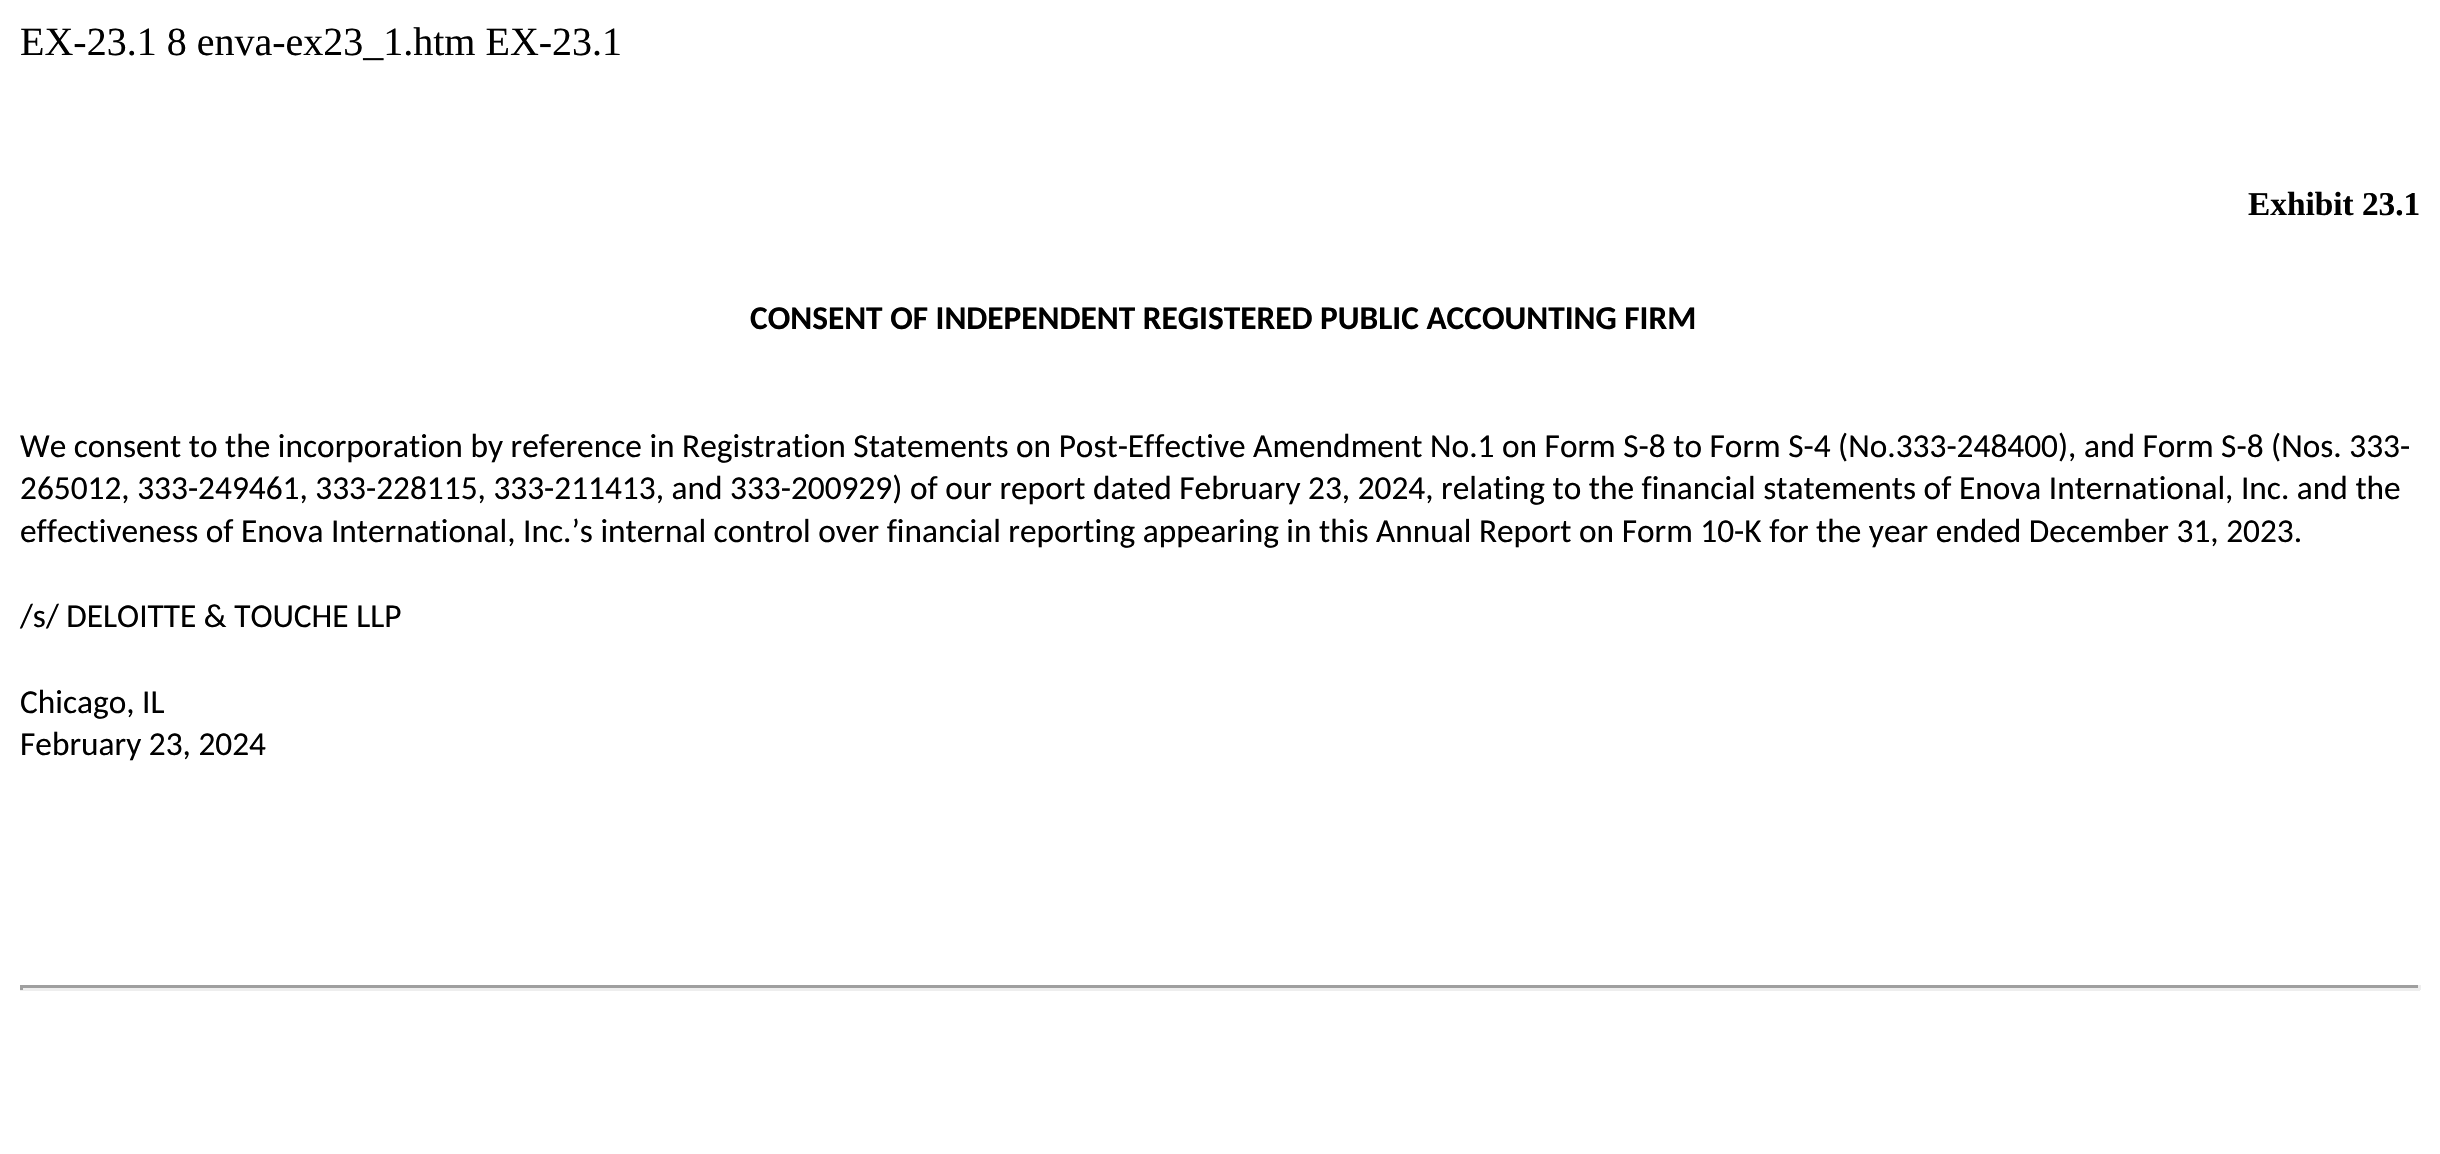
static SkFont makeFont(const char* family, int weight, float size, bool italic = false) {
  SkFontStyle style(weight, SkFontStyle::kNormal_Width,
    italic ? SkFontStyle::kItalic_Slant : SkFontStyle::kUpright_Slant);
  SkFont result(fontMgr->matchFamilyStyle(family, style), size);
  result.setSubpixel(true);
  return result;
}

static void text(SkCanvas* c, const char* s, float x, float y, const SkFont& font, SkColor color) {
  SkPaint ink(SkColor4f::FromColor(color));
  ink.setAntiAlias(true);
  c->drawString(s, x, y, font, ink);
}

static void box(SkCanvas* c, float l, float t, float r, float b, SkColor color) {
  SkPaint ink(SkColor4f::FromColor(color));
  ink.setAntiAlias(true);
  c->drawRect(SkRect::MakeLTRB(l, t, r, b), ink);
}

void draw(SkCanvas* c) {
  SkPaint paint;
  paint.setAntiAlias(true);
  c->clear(0xffffffff);
  SkFont face1 = makeFont("Liberation Serif", 400, 40);
  text(c, "EX-23.1 8 enva-ex23_1.htm EX-23.1", 20, 55, face1, 0xff000000);
  SkFont face2 = makeFont("Liberation Serif", 700, 33.33f);
  text(c, "Exhibit 23.1", 2248, 215, face2, 0xff000000);
  SkFont face3 = makeFont("Carlito", 700, 33.33f);
  text(c, "CONSENT OF INDEPENDENT REGISTERED PUBLIC ACCOUNTING FIRM", 750, 329, face3, 0xff000000);
  SkFont face4 = makeFont("Carlito", 400, 33.33f);
  text(c, "We consent to the incorporation by reference in Registration Statements on Post-Effective Amendment No.1 on Form S-8 to Form S-4 (No.333-248400), and Form S-8 (Nos. 333-", 20, 457, face4, 0xff000000);
  text(c, "265012, 333-249461, 333-228115, 333-211413, and 333-200929) of our report dated February 23, 2024, relating to the financial statements of Enova International, Inc. and the", 20, 499, face4, 0xff000000);
  text(c, "effectiveness of Enova International, Inc.’s internal control over financial reporting appearing in this Annual Report on Form 10-K for the year ended December 31, 2023.", 20, 542, face4, 0xff000000);
  text(c, "/s/ DELOITTE & TOUCHE LLP", 20, 627, face4, 0xff000000);
  text(c, "Chicago, IL", 20, 713, face4, 0xff000000);
  text(c, "February 23, 2024", 20, 755, face4, 0xff000000);
  box(c, 20, 985, 2420, 988, 0xff9f9f9f);
  box(c, 2418, 985, 2421, 990, 0xffeeeeee);
  box(c, 20, 988, 2420, 991, 0xffeeeeee);
  box(c, 20, 985, 23, 990, 0xff9f9f9f);
}
